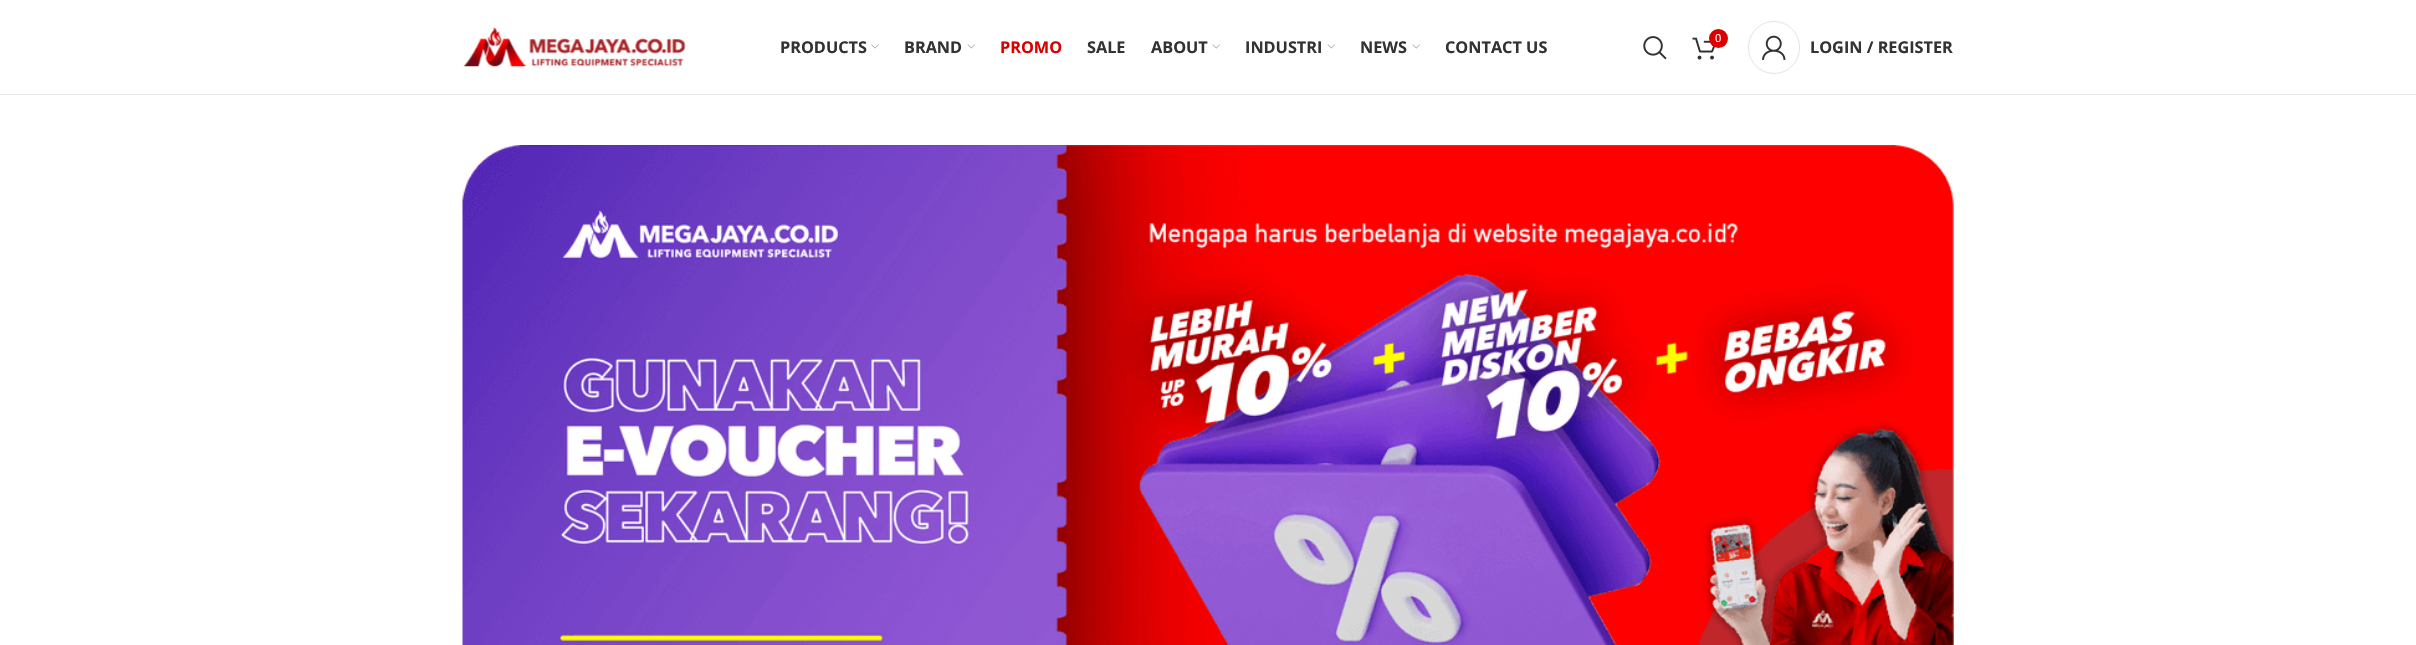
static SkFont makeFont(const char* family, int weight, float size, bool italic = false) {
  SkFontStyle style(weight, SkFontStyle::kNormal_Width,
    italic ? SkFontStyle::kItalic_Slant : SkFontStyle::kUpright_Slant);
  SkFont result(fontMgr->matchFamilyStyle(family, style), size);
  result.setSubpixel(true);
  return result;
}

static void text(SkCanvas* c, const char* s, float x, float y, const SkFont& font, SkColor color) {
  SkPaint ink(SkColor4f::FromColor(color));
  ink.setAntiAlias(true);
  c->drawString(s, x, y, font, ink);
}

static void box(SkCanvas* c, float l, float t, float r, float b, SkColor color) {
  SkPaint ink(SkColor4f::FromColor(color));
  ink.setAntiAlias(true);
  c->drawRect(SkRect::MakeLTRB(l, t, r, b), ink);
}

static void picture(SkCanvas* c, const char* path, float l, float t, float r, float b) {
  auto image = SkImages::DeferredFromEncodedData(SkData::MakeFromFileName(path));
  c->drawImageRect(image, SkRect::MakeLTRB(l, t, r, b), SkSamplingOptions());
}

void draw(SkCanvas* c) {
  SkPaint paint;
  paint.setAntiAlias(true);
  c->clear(0xffffffff);
  box(c, 0, 94, 2416, 95, 0xffe6e6e6);
  picture(c, "img_01.png", 463, 27, 686, 67);
  SkFont face1 = makeFont("Open Sans", 700, 16.25f);
  text(c, "PRODUCTS", 780, 53, face1, 0xff333333);
  picture(c, "img_02.png", 871, 44, 879, 49);
  text(c, "BRAND", 904, 53, face1, 0xff333333);
  picture(c, "img_03.png", 967, 44, 975, 49);
  text(c, "PROMO", 1000, 53, face1, 0xffdb0000);
  text(c, "SALE", 1087, 53, face1, 0xff333333);
  text(c, "ABOUT", 1151, 53, face1, 0xff333333);
  picture(c, "img_03.png", 1212, 44, 1220, 49);
  text(c, "INDUSTRI", 1245, 53, face1, 0xff333333);
  picture(c, "img_03.png", 1327, 44, 1335, 49);
  text(c, "NEWS", 1360, 53, face1, 0xff333333);
  picture(c, "img_03.png", 1412, 44, 1420, 49);
  text(c, "CONTACT US", 1445, 53, face1, 0xff333333);
  picture(c, "img_04.png", 1643, 36, 1667, 60);
  picture(c, "img_05.png", 1692, 37, 1715, 60);
  paint.setColor(0xffdb0000);
  c->drawCircle(1718.5f, 38.5f, 9.5f, paint);
  SkFont face2 = makeFont("Open Sans", 400, 11);
  text(c, "0", 1715, 42, face2, 0xffffffff);
  paint.setStyle(SkPaint::kStroke_Style);
  paint.setStrokeWidth(1);
  paint.setColor(0xffe4e4e4);
  c->drawRoundRect(SkRect::MakeLTRB(1748.5f, 21.5f, 1799.5f, 73.5f), 25.5f, 25.5f, paint);
  picture(c, "img_06.png", 1762, 35, 1786, 60);
  text(c, "LOGIN / REGISTER", 1810, 53, face1, 0xff333333);
  picture(c, "img_07.png", 462, 145, 1954, 645);
}
